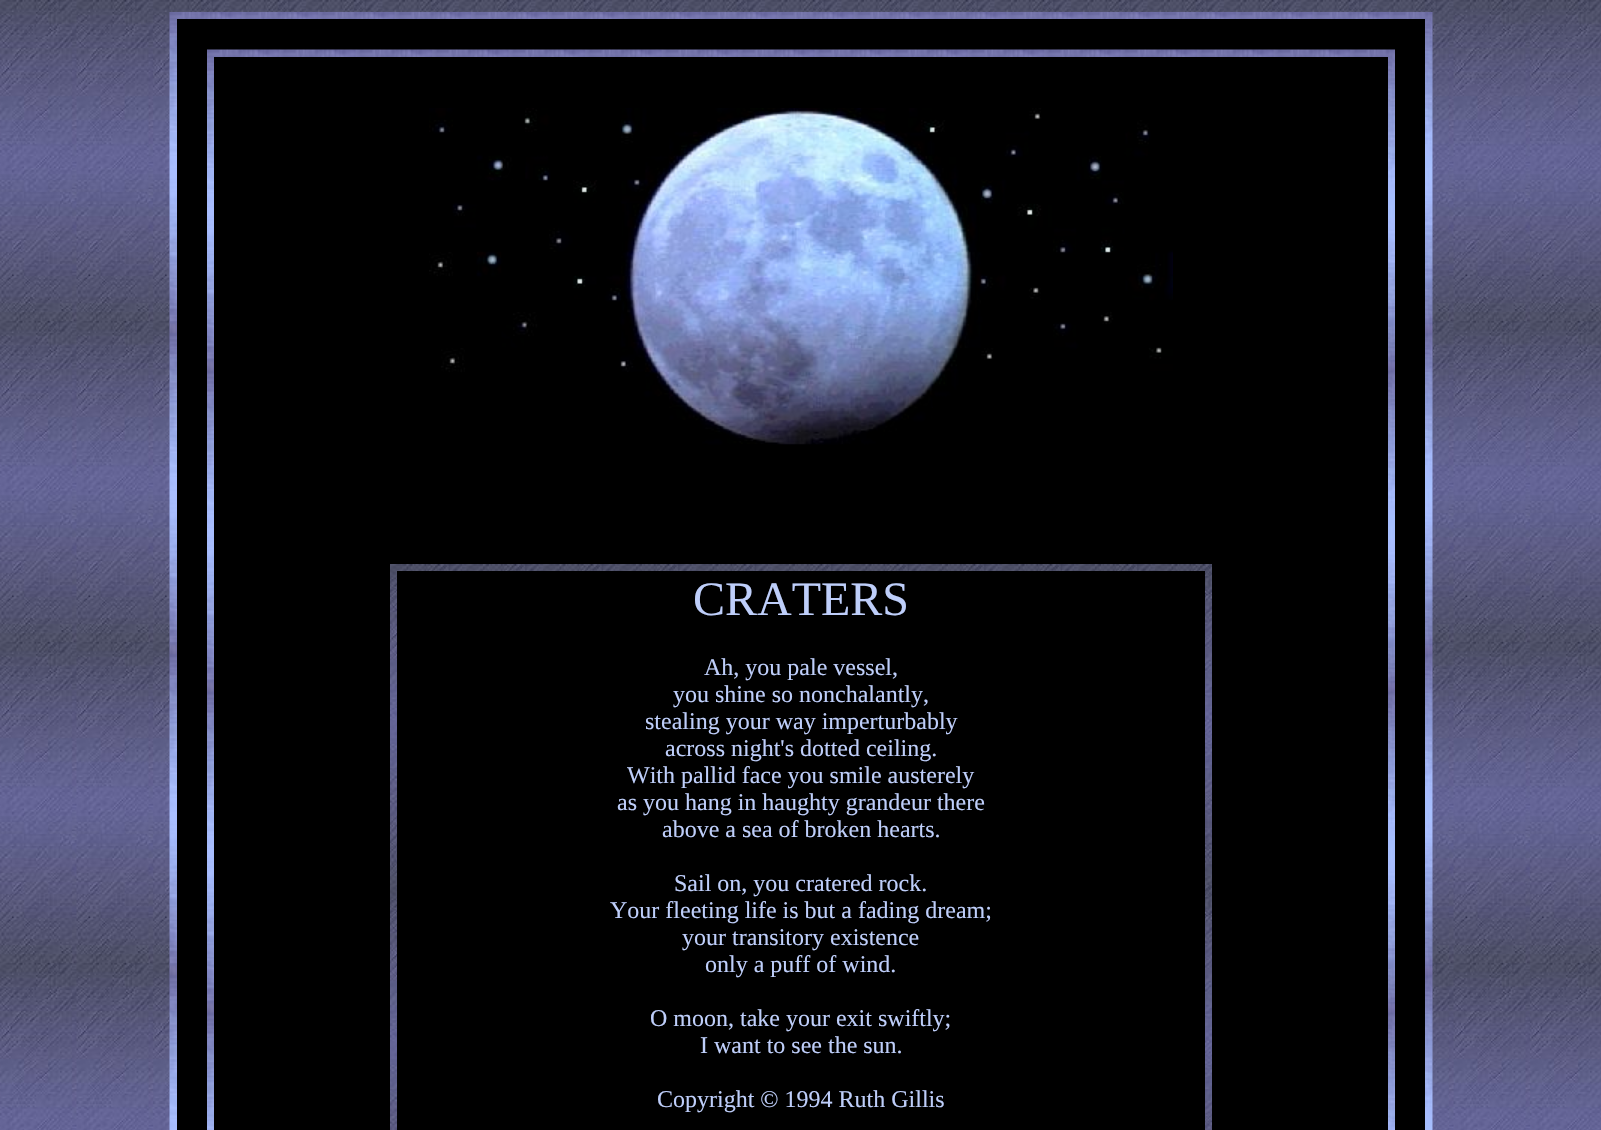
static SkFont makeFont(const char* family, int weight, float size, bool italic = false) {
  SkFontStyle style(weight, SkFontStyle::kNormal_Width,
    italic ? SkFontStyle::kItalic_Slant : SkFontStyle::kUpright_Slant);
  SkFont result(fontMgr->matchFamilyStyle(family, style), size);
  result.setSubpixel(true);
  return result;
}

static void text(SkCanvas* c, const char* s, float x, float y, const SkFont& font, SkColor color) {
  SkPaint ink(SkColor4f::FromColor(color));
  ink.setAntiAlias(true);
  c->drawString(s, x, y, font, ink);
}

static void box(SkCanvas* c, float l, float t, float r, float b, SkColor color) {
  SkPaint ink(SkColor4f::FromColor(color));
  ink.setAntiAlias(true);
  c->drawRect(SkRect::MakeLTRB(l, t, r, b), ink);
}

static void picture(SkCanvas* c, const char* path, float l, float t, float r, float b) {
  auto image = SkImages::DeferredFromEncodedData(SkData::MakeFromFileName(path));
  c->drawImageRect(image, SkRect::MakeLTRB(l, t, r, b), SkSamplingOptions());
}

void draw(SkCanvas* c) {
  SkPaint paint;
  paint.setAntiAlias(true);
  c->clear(0xffffffff);
  picture(c, "img_01.png", 0, 0, 1601, 1130);
  picture(c, "img_02.png", 169, 12, 1433, 1130);
  box(c, 177, 19, 1425, 1130, 0xff000000);
  picture(c, "img_03.png", 207, 49, 1395, 1130);
  box(c, 214, 57, 1388, 1130, 0xff000000);
  picture(c, "img_04.png", 429, 108, 1173, 445);
  picture(c, "img_05.png", 390, 564, 1212, 1130);
  box(c, 397, 571, 1205, 1130, 0xff000000);
  SkFont face1 = makeFont("Liberation Serif", 400, 48);
  text(c, "CRATERS", 693, 615, face1, 0xffbecefa);
  SkFont face2 = makeFont("Liberation Serif", 400, 24);
  text(c, "Ah, you pale vessel,", 704, 675, face2, 0xffbecefa);
  text(c, "you shine so nonchalantly,", 673, 702, face2, 0xffbecefa);
  text(c, "stealing your way imperturbably", 645, 729, face2, 0xffbecefa);
  text(c, "across night's dotted ceiling.", 665, 756, face2, 0xffbecefa);
  text(c, "With pallid face you smile austerely", 627, 783, face2, 0xffbecefa);
  text(c, "as you hang in haughty grandeur there", 617, 810, face2, 0xffbecefa);
  text(c, "above a sea of broken hearts.", 662, 837, face2, 0xffbecefa);
  text(c, "Sail on, you cratered rock.", 674, 891, face2, 0xffbecefa);
  text(c, "Your fleeting life is but a fading dream;", 610, 918, face2, 0xffbecefa);
  text(c, "your transitory existence", 682, 945, face2, 0xffbecefa);
  text(c, "only a puff of wind.", 705, 972, face2, 0xffbecefa);
  text(c, "O moon, take your exit swiftly;", 650, 1026, face2, 0xffbecefa);
  text(c, "I want to see the sun.", 700, 1053, face2, 0xffbecefa);
  text(c, "Copyright © 1994 Ruth Gillis", 657, 1107, face2, 0xffbecefa);
}
